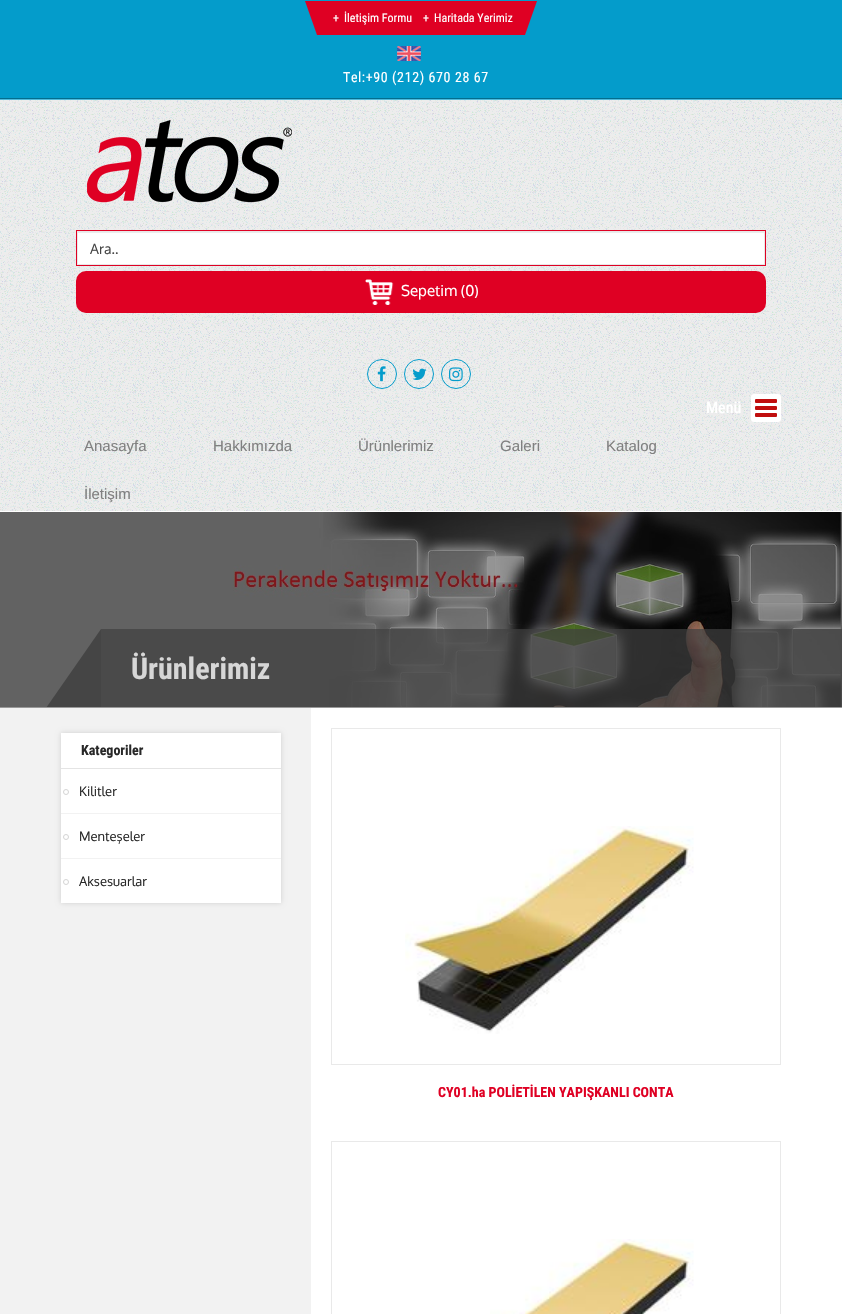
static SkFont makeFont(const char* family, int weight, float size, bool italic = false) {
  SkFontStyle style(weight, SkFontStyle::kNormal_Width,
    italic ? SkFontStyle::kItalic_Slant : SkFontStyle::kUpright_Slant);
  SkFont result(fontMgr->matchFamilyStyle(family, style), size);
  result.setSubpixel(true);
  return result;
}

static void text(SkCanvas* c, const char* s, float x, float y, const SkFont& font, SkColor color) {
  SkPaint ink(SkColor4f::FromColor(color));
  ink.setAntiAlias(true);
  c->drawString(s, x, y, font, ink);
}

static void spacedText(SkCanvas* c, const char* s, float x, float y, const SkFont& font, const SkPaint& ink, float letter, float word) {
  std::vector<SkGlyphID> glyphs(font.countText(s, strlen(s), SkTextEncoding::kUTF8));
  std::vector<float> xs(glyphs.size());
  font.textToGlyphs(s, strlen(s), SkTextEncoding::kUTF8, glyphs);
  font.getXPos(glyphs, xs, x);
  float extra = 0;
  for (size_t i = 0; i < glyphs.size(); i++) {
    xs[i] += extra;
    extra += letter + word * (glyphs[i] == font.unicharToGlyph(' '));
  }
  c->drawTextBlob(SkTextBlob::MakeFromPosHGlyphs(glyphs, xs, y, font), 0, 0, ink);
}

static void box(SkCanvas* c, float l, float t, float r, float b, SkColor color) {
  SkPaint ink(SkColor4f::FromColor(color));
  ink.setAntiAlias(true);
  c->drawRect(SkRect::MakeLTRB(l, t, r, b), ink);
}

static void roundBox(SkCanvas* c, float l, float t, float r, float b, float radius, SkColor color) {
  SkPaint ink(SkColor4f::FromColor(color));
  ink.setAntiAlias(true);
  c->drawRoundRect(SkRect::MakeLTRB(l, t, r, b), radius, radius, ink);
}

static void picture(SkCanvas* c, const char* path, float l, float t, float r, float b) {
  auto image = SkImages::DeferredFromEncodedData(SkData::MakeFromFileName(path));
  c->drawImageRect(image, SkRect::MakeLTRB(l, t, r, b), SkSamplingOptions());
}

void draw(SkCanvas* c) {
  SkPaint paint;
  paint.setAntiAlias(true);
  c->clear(0xfff2f2f2);
  box(c, 0, 100, 842, 511, 0xffededed);
  picture(c, "img_01.png", 0, 100, 842, 511);
  box(c, 0, 511, 842, 512, 0xffffffff);
  box(c, 0, 0, 842, 100, 0xff049ccb);
  box(c, 317, 1, 525, 35, 0xffdf0023);
  paint.setColor(0xffdf0023);
  c->drawPath(SkPathBuilder().moveTo(317, 1).lineTo(317, 35).lineTo(305, 1).close().detach(), paint);
  SkFont face1 = makeFont("Roboto Condensed", 400, 12);
  text(c, "+", 333, 22, face1, 0xffffffff);
  text(c, "İletişim Formu", 344, 22, face1, 0xffffffff);
  text(c, "+", 423, 22, face1, 0xffffffff);
  text(c, "Haritada Yerimiz", 434, 22, face1, 0xffffffff);
  c->drawPath(SkPathBuilder().moveTo(525, 35).lineTo(525, 1).lineTo(537, 1).close().detach(), paint);
  picture(c, "img_02.png", 397, 46, 421, 61);
  SkFont face2 = makeFont("Roboto Condensed", 400, 14);
  paint.setColor(0xffffffff);
  spacedText(c, "Tel:+90 (212) 670 28 67", 343, 82, face2, paint, 0.6f, 0);
  picture(c, "img_03.png", 0, 98, 842, 100);
  picture(c, "img_04.png", 87, 120, 292, 203);
  paint.setStyle(SkPaint::kStroke_Style);
  paint.setStrokeWidth(1);
  paint.setColor(0xffdf0023);
  c->drawRect(SkRect::MakeLTRB(76.5f, 230.5f, 765.5f, 265.5f), paint);
  box(c, 78, 233, 764, 264, 0xffffffff);
  box(c, 78, 232, 764, 233, 0xffececec);
  paint.setColor(0xffe8e8e8);
  c->drawRect(SkRect::MakeLTRB(77.5f, 231.5f, 764.5f, 264.5f), paint);
  SkFont face3 = makeFont("Oxygen", 400, 14);
  text(c, "Ara..", 90, 254, face3, 0xff444444);
  roundBox(c, 76, 271, 766, 313, 10, 0xffdf0023);
  picture(c, "img_05.png", 365, 279, 394, 305);
  SkFont face4 = makeFont("Oxygen", 400, 15);
  text(c, "Sepetim (0)", 401, 296, face4, 0xffffffff);
  paint.setColor(0xff049ccb);
  c->drawCircle(382, 374, 14.5f, paint);
  picture(c, "img_06.png", 377, 366, 386, 382);
  c->drawCircle(419, 374, 14.5f, paint);
  picture(c, "img_07.png", 412, 368, 427, 380);
  c->drawCircle(456, 374, 14.5f, paint);
  picture(c, "img_08.png", 449, 367, 463, 382);
  SkFont face5 = makeFont("Roboto Condensed", 500, 16);
  text(c, "Menü", 706, 413, face5, 0xffffffff);
  roundBox(c, 751, 394, 781, 422, 3, 0xffffffff);
  roundBox(c, 755, 399, 777, 403, 1, 0xffc00e0e);
  roundBox(c, 755, 406, 777, 410, 1, 0xffc00e0e);
  roundBox(c, 755, 413, 777, 417, 1, 0xffc00e0e);
  SkFont face6 = makeFont("Liberation Sans", 400, 15);
  text(c, "Anasayfa", 84, 451, face6, 0xff808080);
  text(c, "Hakkımızda", 213, 451, face6, 0xff808080);
  text(c, "Ürünlerimiz", 358, 451, face6, 0xff808080);
  text(c, "Galeri", 500, 451, face6, 0xff808080);
  text(c, "Katalog", 606, 451, face6, 0xff808080);
  text(c, "İletişim", 84, 499, face6, 0xff808080);
  box(c, 0, 707, 842, 708, 0xff999999);
  picture(c, "img_09.png", 0, 512, 842, 707);
  c->save();
  c->clipRect(SkRect::MakeLTRB(46, 629, 796, 707));
  paint.setStyle(SkPaint::kFill_Style);
  paint.setColor(0xff454545);
  c->drawPath(SkPathBuilder().moveTo(101, 629).lineTo(101, 708).lineTo(46, 708).close().detach(), paint);
  c->restore();
  box(c, 101, 629, 796, 707, 0xb33f3f3f);
  SkFont face7 = makeFont("Roboto Condensed", 700, 30);
  text(c, "Ürünlerimiz", 131, 679, face7, 0xffd7d7d7);
  box(c, 796, 629, 842, 707, 0xb33f3f3f);
  paint.setColor(0x26000000);
  paint.setMaskFilter(SkMaskFilter::MakeBlur(kNormal_SkBlurStyle, 2.5f));
  c->drawRect(SkRect::MakeLTRB(61, 733, 281, 903), paint);
  paint.setMaskFilter(nullptr);
  box(c, 61, 733, 281, 903, 0xffffffff);
  box(c, 61, 768, 281, 769, 0xffe4e4e4);
  SkFont face8 = makeFont("Roboto Condensed", 700, 14);
  text(c, "Kategoriler", 81, 755, face8, 0xff282828);
  paint.setStyle(SkPaint::kStroke_Style);
  paint.setColor(0xffd4d4d4);
  c->drawCircle(66, 792, 2.5f, paint);
  SkFont face9 = makeFont("Oxygen", 400, 13);
  text(c, "Kilitler", 79, 796, face9, 0xff282828);
  box(c, 61, 813, 281, 814, 0xfff2f2f2);
  c->drawCircle(66, 837, 2.5f, paint);
  text(c, "Menteşeler", 79, 841, face9, 0xff282828);
  box(c, 61, 858, 281, 859, 0xfff2f2f2);
  c->drawCircle(66, 882, 2.5f, paint);
  text(c, "Aksesuarlar", 79, 886, face9, 0xff282828);
  box(c, 311, 708, 842, 1314, 0xffffffff);
  paint.setColor(0xffe9e9e9);
  c->drawRect(SkRect::MakeLTRB(331.5f, 728.5f, 780.5f, 1064.5f), paint);
  picture(c, "img_10.png", 405, 826, 694, 1034);
  text(c, "CY01.ha POLİETİLEN YAPIŞKANLI CONTA", 438, 1097, face8, 0xffdf0023);
  c->drawRect(SkRect::MakeLTRB(331.5f, 1141.5f, 780.5f, 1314.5f), paint);
  picture(c, "img_11.png", 490, 1239, 694, 1314);
}
